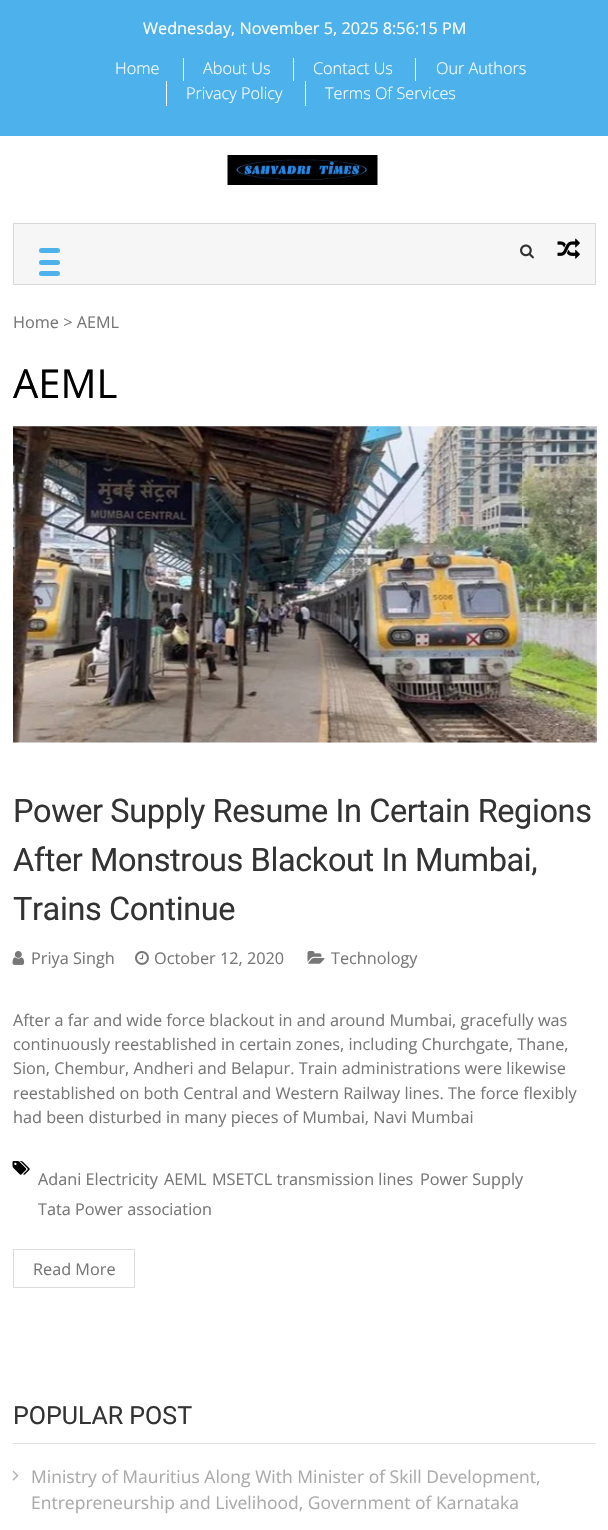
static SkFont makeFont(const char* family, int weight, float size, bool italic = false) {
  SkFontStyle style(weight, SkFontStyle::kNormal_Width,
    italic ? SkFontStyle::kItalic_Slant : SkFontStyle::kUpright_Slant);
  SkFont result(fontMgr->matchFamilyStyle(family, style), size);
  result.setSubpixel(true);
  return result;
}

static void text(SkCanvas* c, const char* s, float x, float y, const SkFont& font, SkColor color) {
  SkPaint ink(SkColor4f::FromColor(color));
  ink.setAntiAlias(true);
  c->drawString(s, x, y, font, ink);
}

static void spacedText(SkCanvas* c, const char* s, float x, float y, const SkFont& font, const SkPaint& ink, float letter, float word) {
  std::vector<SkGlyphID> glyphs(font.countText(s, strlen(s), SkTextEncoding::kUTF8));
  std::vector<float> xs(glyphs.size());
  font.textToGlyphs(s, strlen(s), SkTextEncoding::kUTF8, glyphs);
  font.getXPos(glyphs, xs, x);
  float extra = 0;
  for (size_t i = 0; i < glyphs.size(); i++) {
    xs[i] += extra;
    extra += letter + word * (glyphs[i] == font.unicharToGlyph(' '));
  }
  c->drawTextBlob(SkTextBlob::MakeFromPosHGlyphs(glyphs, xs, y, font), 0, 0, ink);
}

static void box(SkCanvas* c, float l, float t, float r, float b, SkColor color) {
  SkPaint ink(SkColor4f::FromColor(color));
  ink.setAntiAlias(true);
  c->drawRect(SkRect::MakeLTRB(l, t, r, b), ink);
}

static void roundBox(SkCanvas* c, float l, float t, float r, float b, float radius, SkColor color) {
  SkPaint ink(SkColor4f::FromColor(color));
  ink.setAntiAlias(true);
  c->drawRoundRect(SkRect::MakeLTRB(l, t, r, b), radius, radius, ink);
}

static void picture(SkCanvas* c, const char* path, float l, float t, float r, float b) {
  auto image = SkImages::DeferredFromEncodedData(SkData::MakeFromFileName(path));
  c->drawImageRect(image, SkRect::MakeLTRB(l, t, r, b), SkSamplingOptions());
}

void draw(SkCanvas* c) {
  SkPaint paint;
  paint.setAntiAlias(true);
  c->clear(0xffffffff);
  box(c, 0, 0, 608, 136, 0xff4db2ec);
  SkFont face1 = makeFont("Open Sans", 400, 16.25f);
  text(c, "Wednesday, November 5, 2025 8:56:15 PM", 143, 34, face1, 0xffffffff);
  SkFont face2 = makeFont("Open Sans", 300, 16.25f);
  text(c, "Home", 115, 74, face2, 0xffffffff);
  box(c, 183, 58, 184, 81, 0xffffffff);
  text(c, "About Us", 203, 74, face2, 0xffffffff);
  box(c, 293, 58, 294, 81, 0xffffffff);
  text(c, "Contact Us", 313, 74, face2, 0xffffffff);
  box(c, 415, 58, 416, 81, 0xffffffff);
  text(c, "Our Authors", 436, 74, face2, 0xffffffff);
  box(c, 166, 81, 167, 106, 0xffffffff);
  text(c, "Privacy Policy", 186, 99, face2, 0xffffffff);
  box(c, 305, 81, 306, 106, 0xffffffff);
  text(c, "Terms Of Services", 325, 99, face2, 0xffffffff);
  picture(c, "img_01.png", 227, 155, 378, 185);
  paint.setColor(0xfff6f6f6);
  c->drawRect(SkRect::MakeLTRB(13.5f, 223.5f, 595.5f, 284.5f), paint);
  paint.setStyle(SkPaint::kStroke_Style);
  paint.setStrokeWidth(1);
  paint.setColor(0xffd9d8d8);
  c->drawRect(SkRect::MakeLTRB(13.5f, 223.5f, 595.5f, 284.5f), paint);
  roundBox(c, 39, 248, 60, 253, 2.5f, 0xff4db2ec);
  roundBox(c, 39, 260, 60, 265, 2.5f, 0xff4db2ec);
  roundBox(c, 39, 271, 60, 276, 2.5f, 0xff4db2ec);
  picture(c, "img_02.png", 520, 244, 534, 259);
  picture(c, "img_03.png", 557, 238, 580, 259);
  text(c, "Home > AEML", 13, 328, face1, 0xff777777);
  SkFont face3 = makeFont("Open Sans", 400, 40);
  text(c, "AEML", 13, 398, face3, 0xff000000);
  picture(c, "img_04.png", 13, 426, 597, 743);
  SkFont face4 = makeFont("Roboto", 400, 32.5f);
  paint.setStyle(SkPaint::kFill_Style);
  paint.setColor(0xff333333);
  spacedText(c, "Power Supply Resume In Certain Regions", 13, 822, face4, paint, -0.4f, 0);
  spacedText(c, "After Monstrous Blackout In Mumbai,", 13, 871, face4, paint, -0.4f, 0);
  spacedText(c, "Trains Continue", 13, 920, face4, paint, -0.4f, 0);
  picture(c, "img_05.png", 12, 951, 25, 965);
  text(c, "Priya Singh", 31, 964, face1, 0xff777777);
  picture(c, "img_06.png", 135, 951, 149, 965);
  text(c, "October 12, 2020", 154, 964, face1, 0xff777777);
  picture(c, "img_07.png", 307, 951, 325, 964);
  text(c, "Technology", 331, 964, face1, 0xff777777);
  text(c, "After a far and wide force blackout in and around Mumbai, gracefully was", 13, 1026, face1, 0xff777777);
  text(c, "continuously reestablished in certain zones, including Churchgate, Thane,", 13, 1050, face1, 0xff777777);
  text(c, "Sion, Chembur, Andheri and Belapur. Train administrations were likewise", 13, 1074, face1, 0xff777777);
  text(c, "reestablished on both Central and Western Railway lines. The force flexibly", 13, 1099, face1, 0xff777777);
  text(c, "had been disturbed in many pieces of Mumbai, Navi Mumbai", 13, 1123, face1, 0xff777777);
  picture(c, "img_08.png", 12, 1161, 30, 1175);
  text(c, "Adani Electricity", 38, 1185, face1, 0xff777777);
  text(c, "AEML", 164, 1185, face1, 0xff777777);
  text(c, "MSETCL transmission lines", 212, 1185, face1, 0xff777777);
  text(c, "Power Supply", 420, 1185, face1, 0xff777777);
  text(c, "Tata Power association", 38, 1215, face1, 0xff777777);
  paint.setStyle(SkPaint::kStroke_Style);
  paint.setColor(0xffdddddd);
  c->drawRect(SkRect::MakeLTRB(13.5f, 1249.5f, 134.5f, 1287.5f), paint);
  text(c, "Read More", 33, 1275, face1, 0xff777777);
  box(c, 13, 1443, 596, 1444, 0xffe1e1e1);
  SkFont face5 = makeFont("Roboto", 400, 25);
  text(c, "POPULAR POST", 13, 1424, face5, 0xff333333);
  picture(c, "img_09.png", 12, 1470, 19, 1481);
  SkFont face6 = makeFont("Open Sans", 400, 17.5f);
  text(c, "Ministry of Mauritius Along With Minister of Skill Development,", 31, 1483, face6, 0xffaaaaaa);
  text(c, "Entrepreneurship and Livelihood, Government of Karnataka", 31, 1509, face6, 0xffaaaaaa);
}
